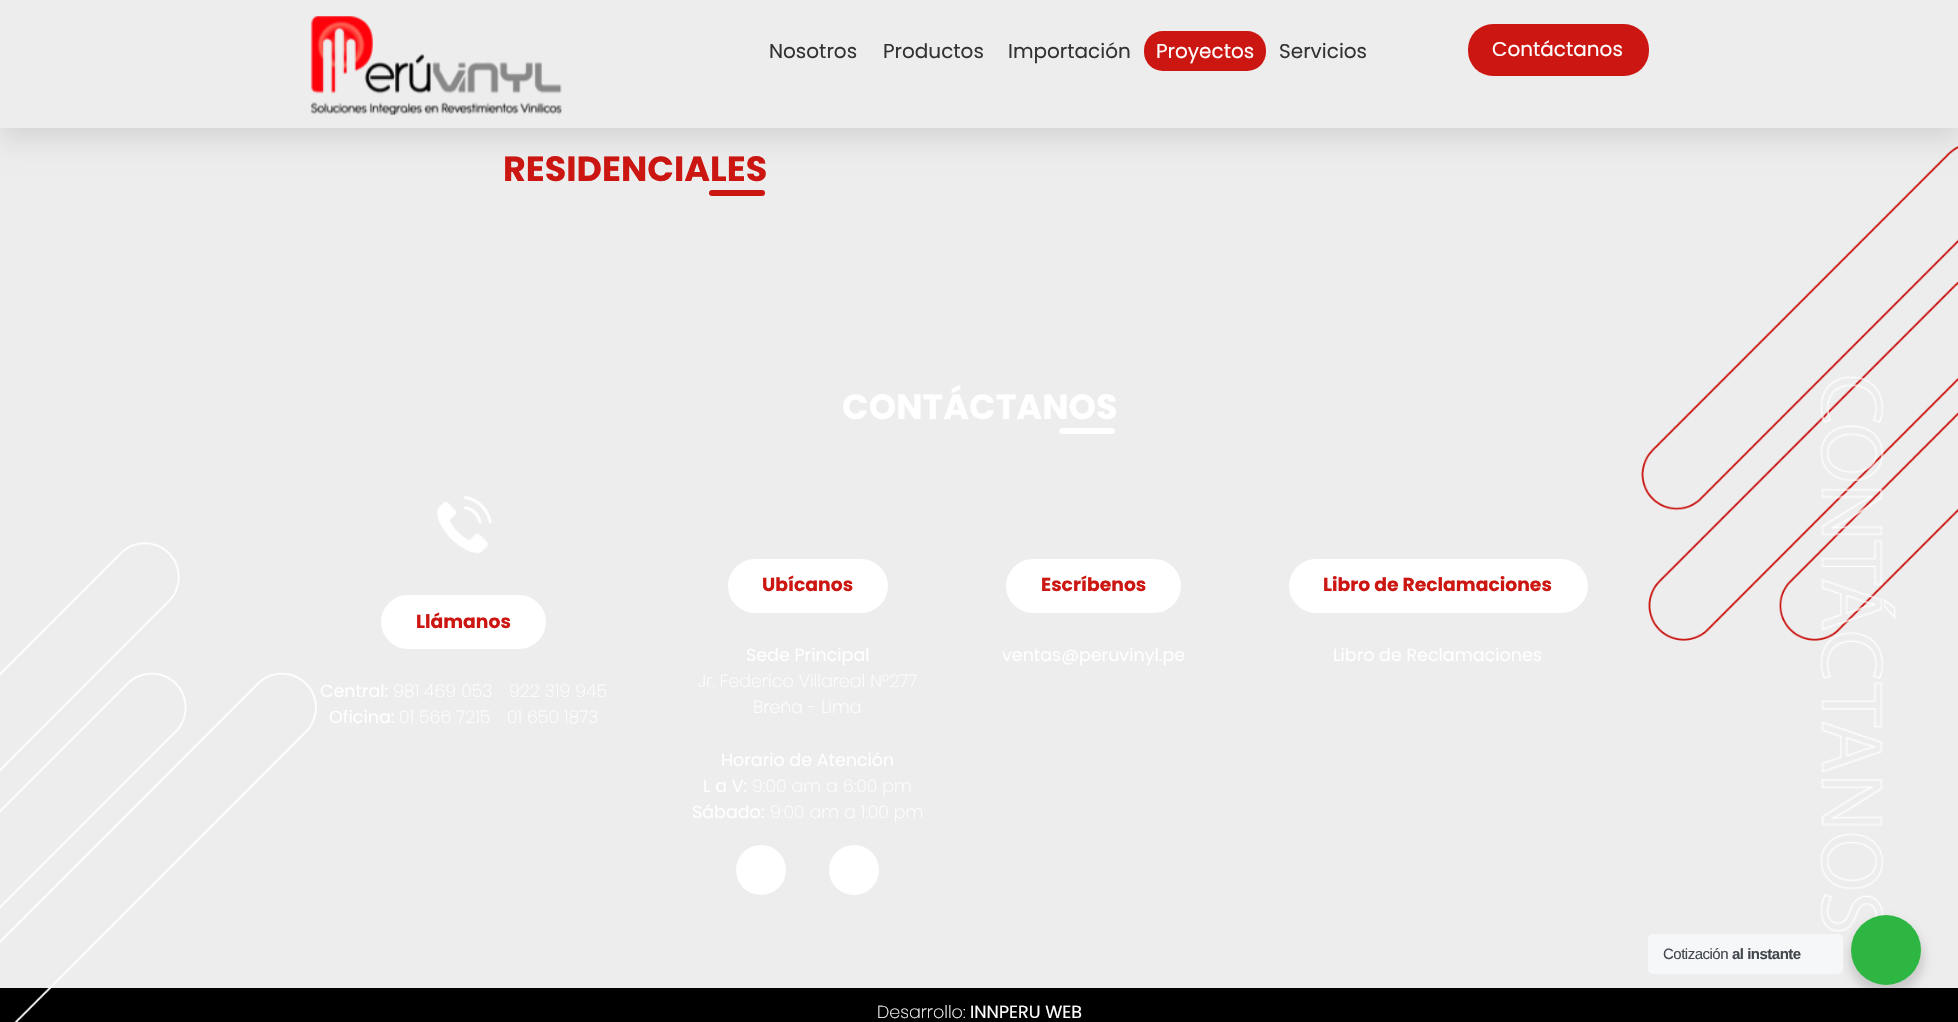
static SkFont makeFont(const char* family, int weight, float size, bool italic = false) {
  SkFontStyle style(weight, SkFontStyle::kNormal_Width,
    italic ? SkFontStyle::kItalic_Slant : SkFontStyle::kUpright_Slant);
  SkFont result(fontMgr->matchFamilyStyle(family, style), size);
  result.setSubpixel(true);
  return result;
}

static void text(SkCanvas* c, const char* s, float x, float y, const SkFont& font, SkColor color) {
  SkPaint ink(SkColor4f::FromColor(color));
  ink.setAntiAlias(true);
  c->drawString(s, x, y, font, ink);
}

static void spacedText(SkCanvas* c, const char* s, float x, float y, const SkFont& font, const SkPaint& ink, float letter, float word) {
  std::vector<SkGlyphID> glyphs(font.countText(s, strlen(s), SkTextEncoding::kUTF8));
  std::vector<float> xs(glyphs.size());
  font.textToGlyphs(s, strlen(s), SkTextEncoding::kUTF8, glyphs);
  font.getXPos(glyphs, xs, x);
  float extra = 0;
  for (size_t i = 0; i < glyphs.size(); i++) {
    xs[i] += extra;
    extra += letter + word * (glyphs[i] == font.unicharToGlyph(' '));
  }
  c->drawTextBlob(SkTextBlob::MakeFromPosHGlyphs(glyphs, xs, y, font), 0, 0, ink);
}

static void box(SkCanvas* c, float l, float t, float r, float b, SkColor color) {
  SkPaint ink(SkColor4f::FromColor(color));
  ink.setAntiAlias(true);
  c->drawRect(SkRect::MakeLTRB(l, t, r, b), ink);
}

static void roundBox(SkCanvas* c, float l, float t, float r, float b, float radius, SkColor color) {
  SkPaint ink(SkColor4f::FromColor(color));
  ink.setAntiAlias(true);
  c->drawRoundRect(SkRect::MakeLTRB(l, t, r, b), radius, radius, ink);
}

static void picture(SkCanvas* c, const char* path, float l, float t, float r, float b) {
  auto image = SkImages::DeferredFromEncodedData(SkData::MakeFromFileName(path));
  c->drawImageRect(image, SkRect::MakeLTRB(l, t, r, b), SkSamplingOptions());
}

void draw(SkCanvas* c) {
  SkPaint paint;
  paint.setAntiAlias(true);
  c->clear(0xffededed);
  SkFont face1 = makeFont("Poppins", 700, 35);
  text(c, "RESIDENCIALES", 503, 181, face1, 0xffcc1611);
  roundBox(c, 709, 190, 765, 196, 3, 0xffcc1611);
  picture(c, "img_01.png", 1641, 146, 1958, 641);
  paint.setColor(0x1a000000);
  paint.setMaskFilter(SkMaskFilter::MakeBlur(kNormal_SkBlurStyle, 12.5f));
  c->drawRect(SkRect::MakeLTRB(0, 13, 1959, 140), paint);
  paint.setMaskFilter(nullptr);
  box(c, 0, 0, 1958, 128, 0xffededed);
  picture(c, "img_02.png", 310, 16, 562, 115);
  SkFont face2 = makeFont("Poppins", 400, 20);
  text(c, "Nosotros", 769, 58, face2, 0xff333333);
  text(c, "Productos", 883, 58, face2, 0xff333333);
  text(c, "Importación", 1008, 58, face2, 0xff333333);
  roundBox(c, 1144, 31, 1266, 71, 19, 0xffcc1611);
  text(c, "Proyectos", 1156, 58, face2, 0xffffffff);
  text(c, "Servicios", 1279, 58, face2, 0xff333333);
  roundBox(c, 1468, 24, 1649, 76, 25, 0xffcc1611);
  text(c, "Contáctanos", 1492, 56, face2, 0xffffffff);
  picture(c, "img_05.png", 1820, 376, 1896, 932);
  box(c, 0, 988, 1958, 1022, 0xff000000);
  paint.setColor(0x24000000);
  paint.setMaskFilter(SkMaskFilter::MakeBlur(kNormal_SkBlurStyle, 5));
  c->drawRoundRect(SkRect::MakeLTRB(1849, 920, 1924, 995), 37.5f, 37.5f, paint);
  paint.setMaskFilter(nullptr);
  roundBox(c, 1648, 934, 1843, 974, 5, 0xfff5f7f9);
  SkFont face3 = makeFont("Liberation Sans", 400, 15);
  paint.setColor(0xff43474e);
  spacedText(c, "Cotización", 1663, 959, face3, paint, -0.5f, 0);
  SkFont face4 = makeFont("Liberation Sans", 700, 15);
  spacedText(c, "al instante", 1732, 959, face4, paint, -0.5f, 0);
  paint.setColor(0xff2db742);
  c->drawCircle(1886, 950, 35, paint);
  picture(c, "img_03.png", 0, 542, 317, 1022);
  text(c, "CONTÁCTANOS", 842, 419, face1, 0xffffffff);
  roundBox(c, 1059, 428, 1115, 434, 3, 0xffffffff);
  picture(c, "img_04.png", 437, 496, 492, 554);
  paint.setColor(0xffffffff);
  c->drawRoundRect(SkRect::MakeLTRB(383, 597, 544, 647), 25, 25, paint);
  paint.setStyle(SkPaint::kStroke_Style);
  paint.setStrokeWidth(4);
  c->drawRoundRect(SkRect::MakeLTRB(383, 597, 544, 647), 25, 25, paint);
  SkFont face5 = makeFont("Poppins", 700, 18.75f);
  text(c, "Llámanos", 416, 628, face5, 0xffcc1611);
  SkFont face6 = makeFont("Poppins", 400, 17.5f);
  text(c, "Central:", 320, 697, face6, 0xffffffff);
  SkFont face7 = makeFont("Poppins", 200, 17.5f);
  text(c, "981 469 053", 393, 697, face7, 0xffffffff);
  text(c, "922 319 945", 509, 697, face7, 0xffffffff);
  text(c, "Oficina:", 329, 723, face6, 0xffffffff);
  text(c, "01 566 7215", 399, 723, face7, 0xffffffff);
  text(c, "01 650 1873", 507, 723, face7, 0xffffffff);
  paint.setStyle(SkPaint::kFill_Style);
  c->drawRoundRect(SkRect::MakeLTRB(730, 561, 886, 611), 25, 25, paint);
  paint.setStyle(SkPaint::kStroke_Style);
  c->drawRoundRect(SkRect::MakeLTRB(730, 561, 886, 611), 25, 25, paint);
  text(c, "Ubícanos", 762, 591, face5, 0xffcc1611);
  text(c, "Sede Principal", 746, 661, face6, 0xffffffff);
  text(c, "Jr. Federico Villareal Nº277", 698, 687, face7, 0xffffffff);
  text(c, "Breña - Lima", 753, 713, face7, 0xffffffff);
  text(c, "Horario de Atención", 721, 766, face6, 0xffffffff);
  text(c, "L a V:", 703, 792, face6, 0xffffffff);
  text(c, "9:00 am a 6:00 pm", 752, 792, face7, 0xffffffff);
  text(c, "Sábado:", 692, 818, face6, 0xffffffff);
  text(c, "9:00 am a 1:00 pm", 770, 818, face7, 0xffffffff);
  paint.setStyle(SkPaint::kFill_Style);
  c->drawCircle(761, 870, 23, paint);
  paint.setStyle(SkPaint::kStroke_Style);
  c->drawCircle(761, 870, 23, paint);
  paint.setStyle(SkPaint::kFill_Style);
  c->drawCircle(854, 870, 23, paint);
  paint.setStyle(SkPaint::kStroke_Style);
  c->drawCircle(854, 870, 23, paint);
  paint.setStyle(SkPaint::kFill_Style);
  c->drawRoundRect(SkRect::MakeLTRB(1008, 561, 1179, 611), 25, 25, paint);
  paint.setStyle(SkPaint::kStroke_Style);
  c->drawRoundRect(SkRect::MakeLTRB(1008, 561, 1179, 611), 25, 25, paint);
  text(c, "Escríbenos", 1041, 591, face5, 0xffcc1611);
  text(c, "ventas@peruvinyl.pe", 1002, 661, face6, 0xffffffff);
  paint.setStyle(SkPaint::kFill_Style);
  c->drawRoundRect(SkRect::MakeLTRB(1291, 561, 1586, 611), 25, 25, paint);
  paint.setStyle(SkPaint::kStroke_Style);
  c->drawRoundRect(SkRect::MakeLTRB(1291, 561, 1586, 611), 25, 25, paint);
  text(c, "Libro de Reclamaciones", 1323, 591, face5, 0xffcc1611);
  text(c, "Libro de Reclamaciones", 1333, 661, face6, 0xffffffff);
  text(c, "Desarrollo:", 877, 1018, face7, 0xffffffff);
  text(c, "INNPERU WEB", 970, 1018, face6, 0xffffffff);
}
